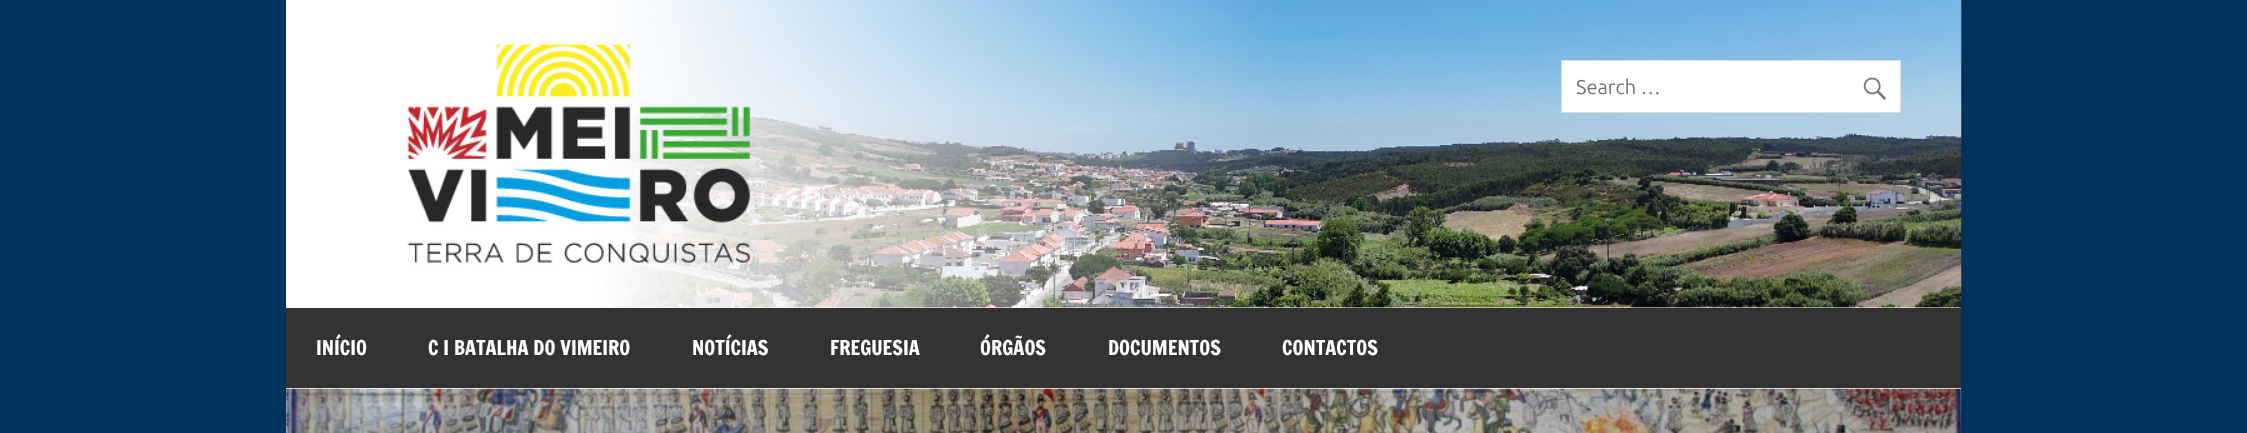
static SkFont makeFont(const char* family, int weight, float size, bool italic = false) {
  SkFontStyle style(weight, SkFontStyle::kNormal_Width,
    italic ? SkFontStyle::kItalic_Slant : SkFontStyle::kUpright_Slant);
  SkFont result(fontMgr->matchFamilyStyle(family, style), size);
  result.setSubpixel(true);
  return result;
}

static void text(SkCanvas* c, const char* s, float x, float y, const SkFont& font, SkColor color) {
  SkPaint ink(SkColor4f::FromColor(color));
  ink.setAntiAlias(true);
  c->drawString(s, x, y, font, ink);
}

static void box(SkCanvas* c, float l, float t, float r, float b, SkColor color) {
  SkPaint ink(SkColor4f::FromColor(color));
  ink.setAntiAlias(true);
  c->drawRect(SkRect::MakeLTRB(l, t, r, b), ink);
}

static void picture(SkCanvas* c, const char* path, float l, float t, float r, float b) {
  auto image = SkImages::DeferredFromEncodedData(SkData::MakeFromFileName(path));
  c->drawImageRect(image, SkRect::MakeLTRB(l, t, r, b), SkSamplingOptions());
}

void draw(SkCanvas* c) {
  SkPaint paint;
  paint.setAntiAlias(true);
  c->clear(0xff00325e);
  box(c, 286, 0, 1961, 433, 0xffffffff);
  picture(c, "img_01.png", 407, 0, 1962, 308);
  paint.setColor(0xffffffff);
  c->drawRect(SkRect::MakeLTRB(1561.5f, 60.5f, 1900.5f, 112.5f), paint);
  paint.setStyle(SkPaint::kStroke_Style);
  paint.setStrokeWidth(1);
  paint.setColor(0xffdddddd);
  c->drawRect(SkRect::MakeLTRB(1561.5f, 60.5f, 1900.5f, 112.5f), paint);
  SkFont face1 = makeFont("Ubuntu", 400, 20);
  text(c, "Search …", 1576, 94, face1, 0xff757575);
  picture(c, "img_02.png", 1863, 77, 1887, 100);
  box(c, 286, 308, 1961, 388, 0xff333333);
  SkFont face2 = makeFont("Francois One", 400, 20);
  text(c, "INÍCIO", 316, 355, face2, 0xffffffff);
  text(c, "C I BATALHA DO VIMEIRO", 428, 355, face2, 0xffffffff);
  text(c, "NOTÍCIAS", 692, 355, face2, 0xffffffff);
  text(c, "FREGUESIA", 830, 355, face2, 0xffffffff);
  text(c, "ÓRGÃOS", 980, 355, face2, 0xffffffff);
  text(c, "DOCUMENTOS", 1108, 355, face2, 0xffffffff);
  text(c, "CONTACTOS", 1282, 355, face2, 0xffffffff);
  picture(c, "img_03.png", 286, 388, 1962, 433);
}
